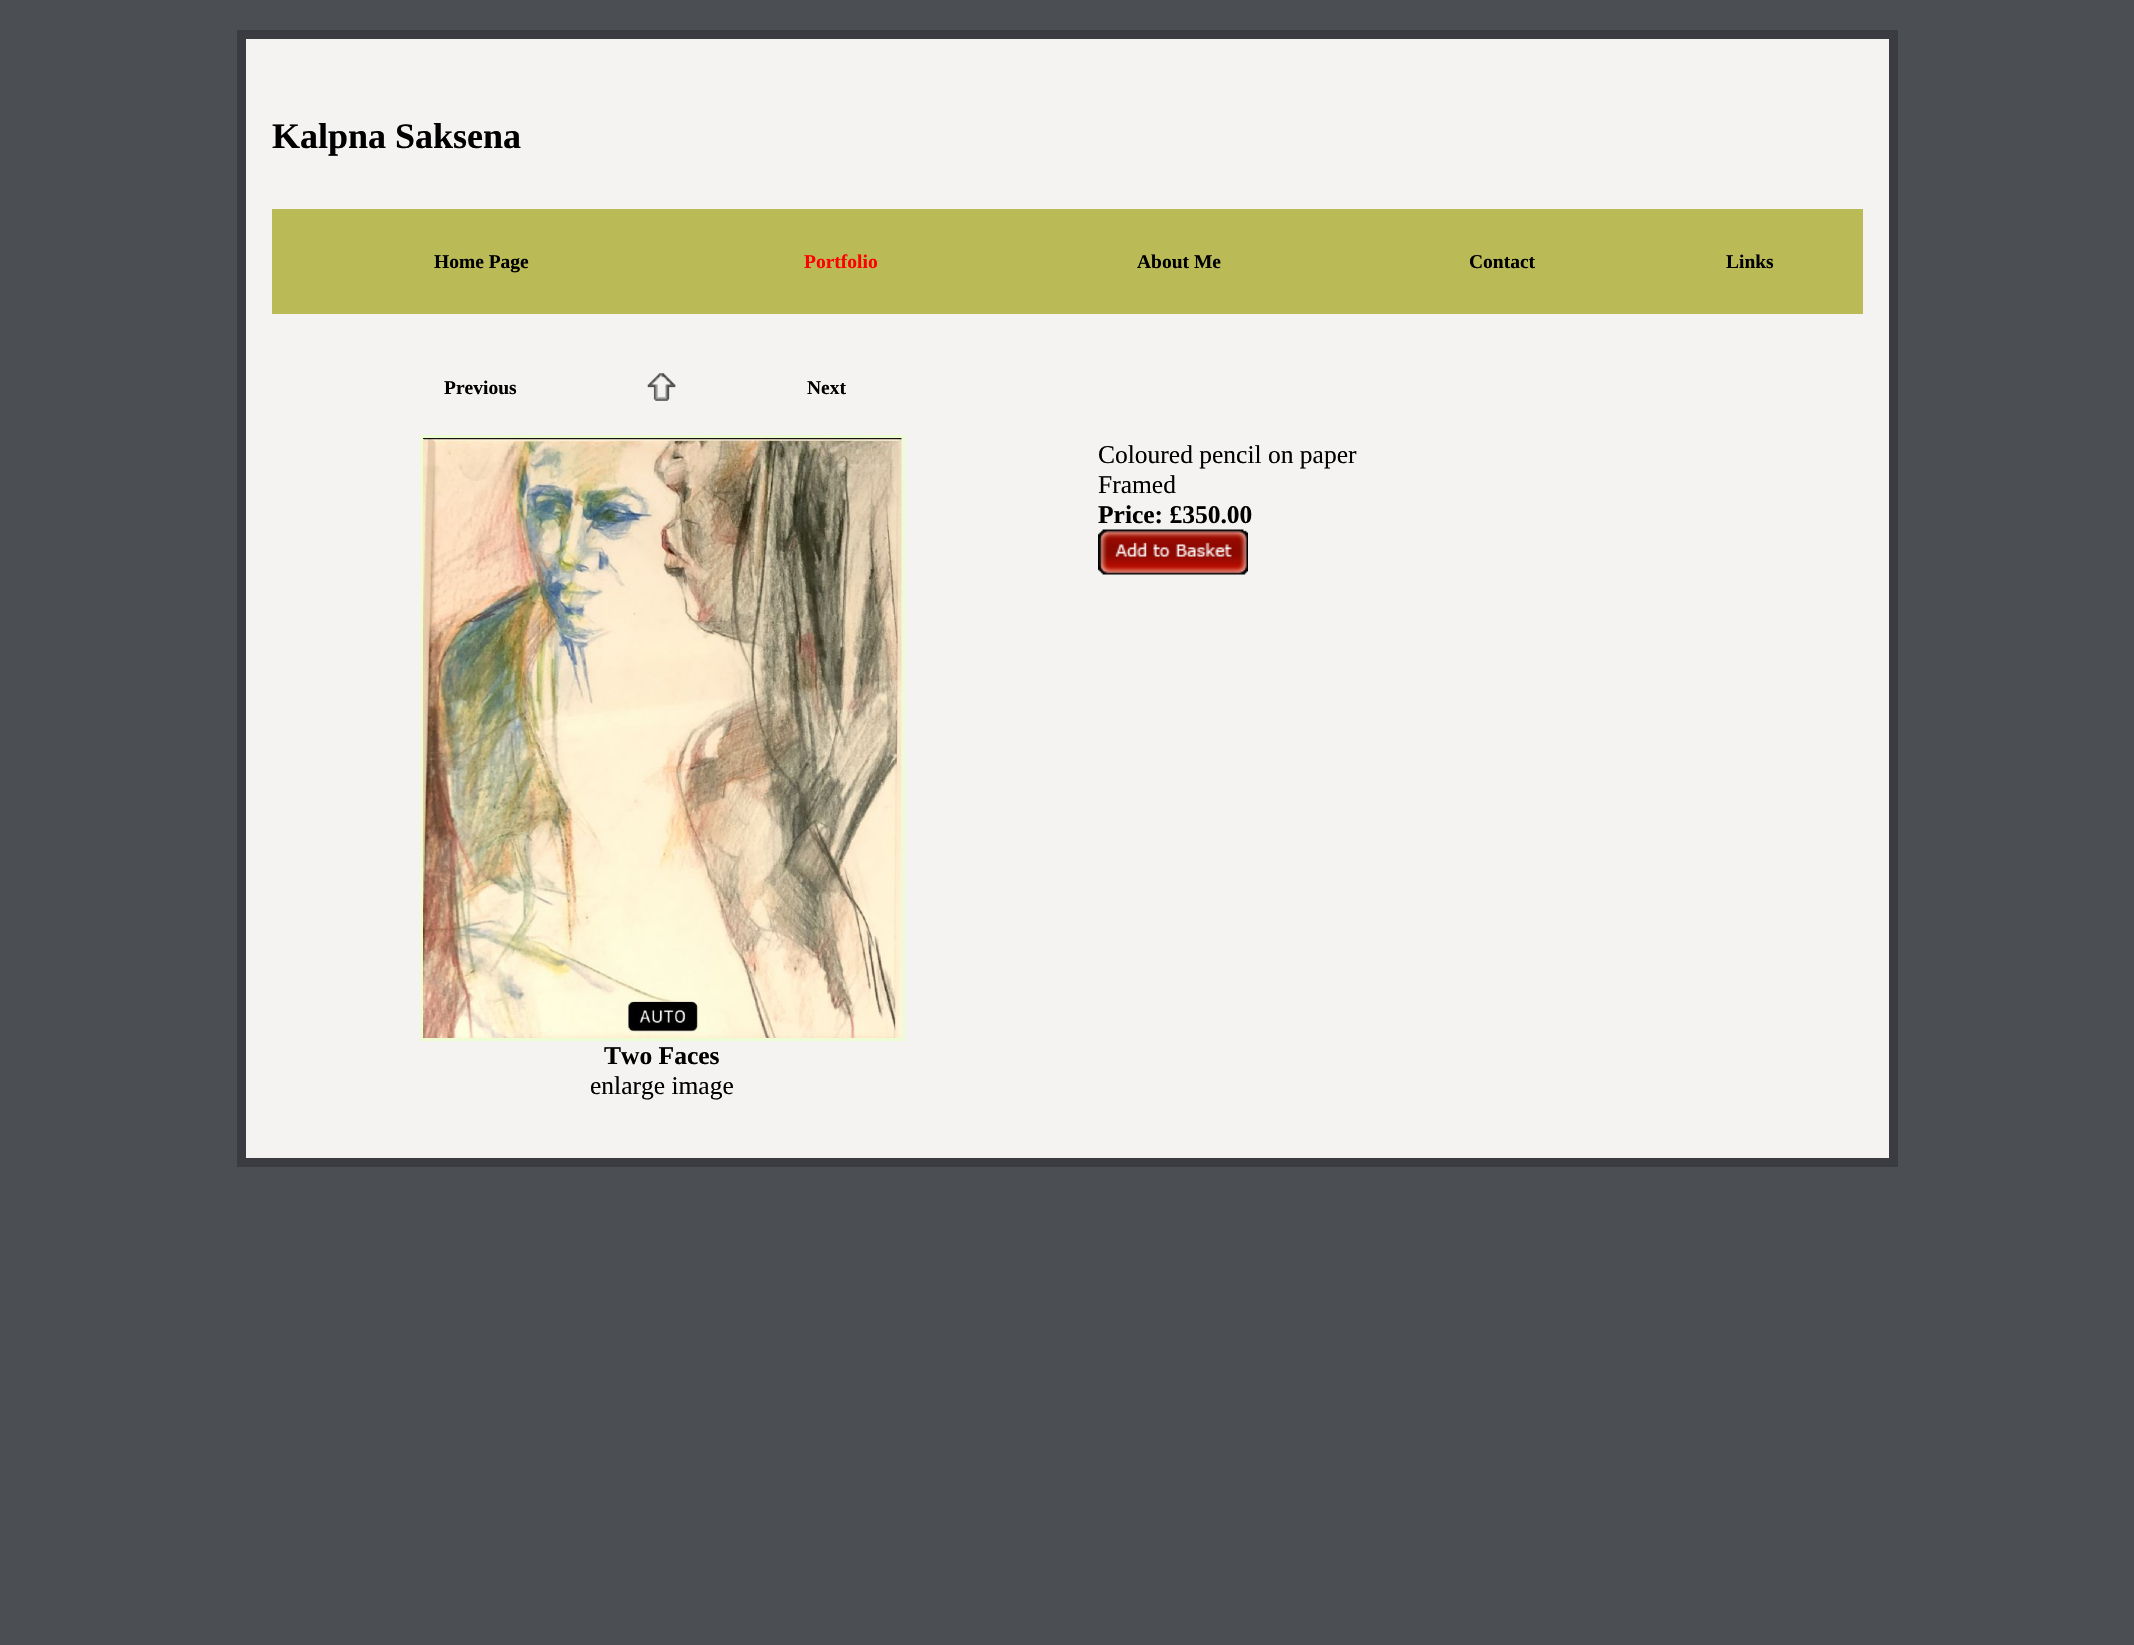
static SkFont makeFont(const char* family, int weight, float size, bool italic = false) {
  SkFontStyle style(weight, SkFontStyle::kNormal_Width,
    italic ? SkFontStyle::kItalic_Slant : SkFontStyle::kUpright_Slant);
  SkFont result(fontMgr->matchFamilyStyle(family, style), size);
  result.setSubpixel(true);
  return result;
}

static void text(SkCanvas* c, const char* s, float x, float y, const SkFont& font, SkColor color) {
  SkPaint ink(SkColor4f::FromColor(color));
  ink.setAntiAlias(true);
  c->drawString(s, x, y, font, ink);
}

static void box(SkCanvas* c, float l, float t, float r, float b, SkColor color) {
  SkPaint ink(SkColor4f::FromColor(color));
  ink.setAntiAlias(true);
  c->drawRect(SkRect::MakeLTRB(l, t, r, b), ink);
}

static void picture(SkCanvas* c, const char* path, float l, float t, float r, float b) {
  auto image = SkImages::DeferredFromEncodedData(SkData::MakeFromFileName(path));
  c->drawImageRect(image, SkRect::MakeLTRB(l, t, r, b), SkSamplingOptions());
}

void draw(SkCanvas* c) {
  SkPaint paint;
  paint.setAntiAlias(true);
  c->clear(0xff4b4e52);
  paint.setColor(0xfff5f3f2);
  c->drawRect(SkRect::MakeLTRB(241.5f, 34.5f, 1893.5f, 1162.5f), paint);
  paint.setStyle(SkPaint::kStroke_Style);
  paint.setStrokeWidth(9);
  paint.setColor(0xff3b3b42);
  c->drawRect(SkRect::MakeLTRB(241.5f, 34.5f, 1893.5f, 1162.5f), paint);
  SkFont face1 = makeFont("Liberation Serif", 700, 36);
  text(c, "Kalpna Saksena", 272, 148, face1, 0xff000000);
  box(c, 272, 209, 1863, 314, 0xffbaba57);
  SkFont face2 = makeFont("Liberation Serif", 700, 19.5f);
  text(c, "Home Page", 434, 268, face2, 0xff000000);
  text(c, "Portfolio", 804, 268, face2, 0xffff0000);
  text(c, "About Me", 1137, 268, face2, 0xff000000);
  text(c, "Contact", 1469, 268, face2, 0xff000000);
  text(c, "Links", 1726, 268, face2, 0xff000000);
  text(c, "Previous", 444, 394, face2, 0xff000000);
  picture(c, "img_01.png", 647, 373, 676, 401);
  text(c, "Next", 807, 394, face2, 0xff000000);
  paint.setStrokeWidth(3);
  paint.setColor(0xffedfcd2);
  c->drawRect(SkRect::MakeLTRB(421.5f, 436.5f, 903.5f, 1039.5f), paint);
  picture(c, "img_02.png", 423, 438, 902, 1038);
  SkFont face3 = makeFont("Liberation Serif", 700, 25.5f);
  text(c, "Two Faces", 604, 1064, face3, 0xff000000);
  SkFont face4 = makeFont("Liberation Serif", 400, 25.5f);
  text(c, "enlarge image", 590, 1094, face4, 0xff000000);
  text(c, "Coloured pencil on paper", 1098, 463, face4, 0xff000000);
  text(c, "Framed", 1098, 493, face4, 0xff000000);
  text(c, "Price: £350.00", 1098, 523, face3, 0xff000000);
  picture(c, "img_03.png", 1098, 529, 1248, 575);
}
